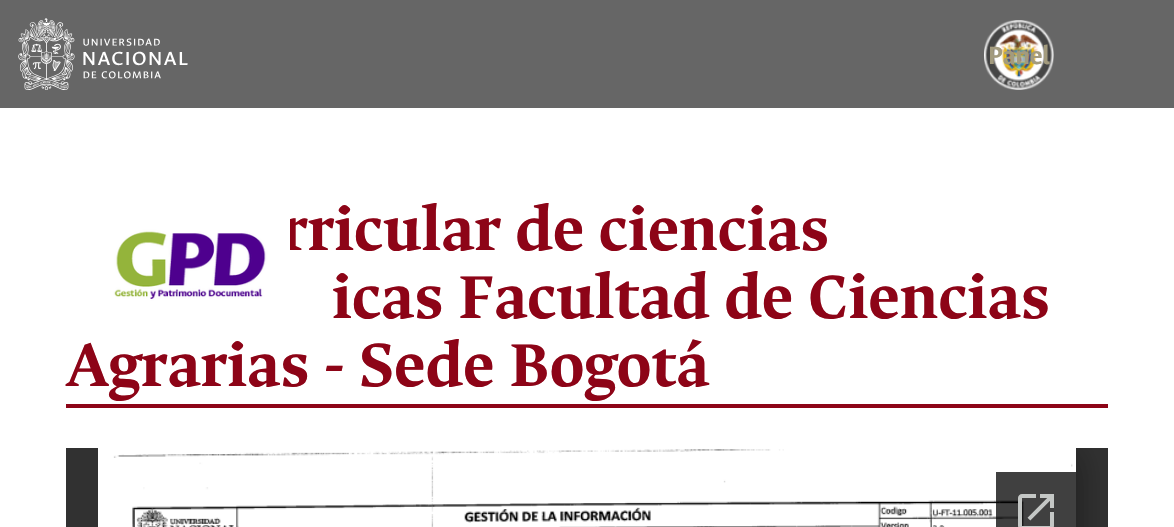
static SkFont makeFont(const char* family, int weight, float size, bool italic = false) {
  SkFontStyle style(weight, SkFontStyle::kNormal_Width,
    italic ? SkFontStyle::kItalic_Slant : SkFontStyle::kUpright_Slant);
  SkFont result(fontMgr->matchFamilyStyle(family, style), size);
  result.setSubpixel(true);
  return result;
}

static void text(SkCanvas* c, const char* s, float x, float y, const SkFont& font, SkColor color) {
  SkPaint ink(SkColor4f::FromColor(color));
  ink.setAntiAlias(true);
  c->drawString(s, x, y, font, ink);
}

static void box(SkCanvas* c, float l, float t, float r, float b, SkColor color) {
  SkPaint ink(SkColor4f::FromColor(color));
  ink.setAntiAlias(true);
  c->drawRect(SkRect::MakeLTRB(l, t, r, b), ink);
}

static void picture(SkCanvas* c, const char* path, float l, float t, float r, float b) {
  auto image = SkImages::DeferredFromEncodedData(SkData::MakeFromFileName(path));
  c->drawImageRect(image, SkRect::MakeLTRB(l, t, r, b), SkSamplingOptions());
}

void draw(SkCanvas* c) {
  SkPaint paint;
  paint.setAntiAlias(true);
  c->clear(0xffffffff);
  box(c, 0, 0, 1174, 108, 0xff666666);
  picture(c, "img_01.png", 18, 18, 188, 90);
  picture(c, "img_02.png", 984, 20, 1054, 90);
  SkFont face1 = makeFont("Ancizar Sans", 700, 28);
  text(c, "Panel", 988, 64, face1, 0xffa39b7e);
  SkFont face2 = makeFont("Ancizar Serif", 700, 68);
  text(c, "rricular de ciencias", 281, 250, face2, 0xff8d0417);
  picture(c, "img_03.png", 90, 200, 290, 310);
  box(c, 66, 404, 1108, 408, 0xff8d0417);
  text(c, "icas Facultad de Ciencias", 332, 318, face2, 0xff8d0417);
  text(c, "Agrarias - Sede Bogotá", 66, 386, face2, 0xff8d0417);
  picture(c, "img_04.png", 66, 448, 1108, 527);
}
